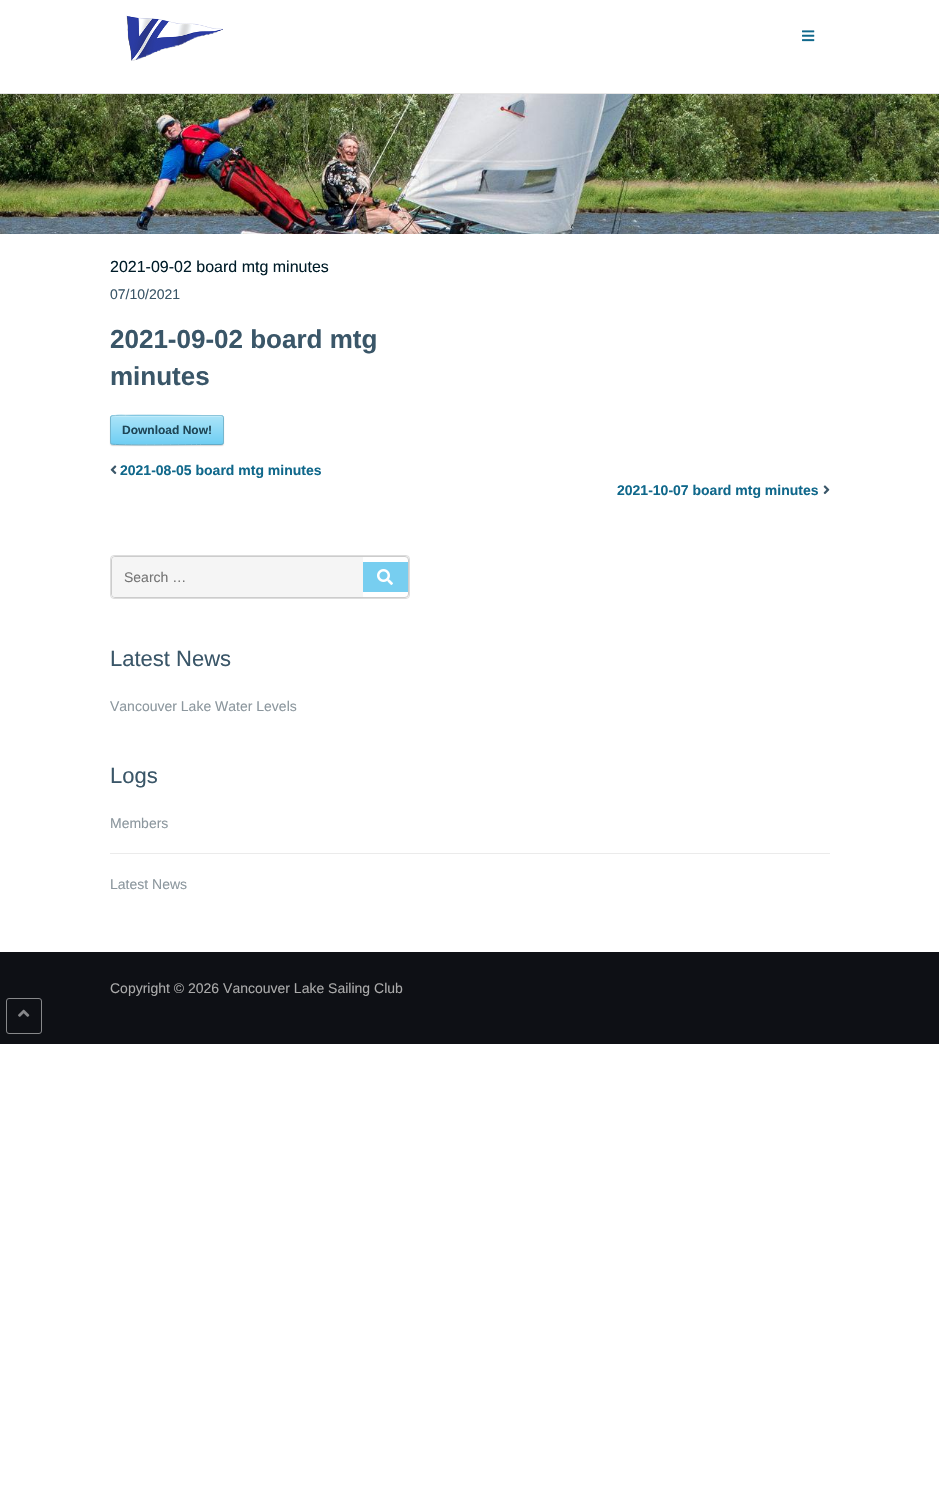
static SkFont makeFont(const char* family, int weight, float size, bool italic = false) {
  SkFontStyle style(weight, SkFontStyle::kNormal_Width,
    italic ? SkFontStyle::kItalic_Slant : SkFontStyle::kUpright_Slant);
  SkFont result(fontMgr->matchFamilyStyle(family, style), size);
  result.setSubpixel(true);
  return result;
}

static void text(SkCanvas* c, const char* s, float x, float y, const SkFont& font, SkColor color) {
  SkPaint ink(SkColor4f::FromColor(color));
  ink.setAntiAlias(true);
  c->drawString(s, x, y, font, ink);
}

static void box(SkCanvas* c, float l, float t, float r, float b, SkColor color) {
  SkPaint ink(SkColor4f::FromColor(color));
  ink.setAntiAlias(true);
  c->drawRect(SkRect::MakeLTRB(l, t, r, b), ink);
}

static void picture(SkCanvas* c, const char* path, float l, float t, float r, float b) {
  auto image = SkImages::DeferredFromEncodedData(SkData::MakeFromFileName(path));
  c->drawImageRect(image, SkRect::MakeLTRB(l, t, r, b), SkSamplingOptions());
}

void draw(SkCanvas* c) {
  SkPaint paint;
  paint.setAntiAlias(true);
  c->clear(0xffffffff);
  box(c, 0, 93, 939, 94, 0xffe6e6e6);
  picture(c, "img_01.png", 126, 15, 223, 61);
  picture(c, "img_02.png", 802, 30, 815, 42);
  picture(c, "img_03.png", 0, 94, 939, 234);
  SkFont face1 = makeFont("Liberation Sans", 400, 16);
  text(c, "2021-09-02 board mtg minutes", 110, 272, face1, 0xff001c28);
  SkFont face2 = makeFont("Liberation Sans", 400, 14);
  text(c, "07/10/2021", 110, 299, face2, 0xff3a5668);
  SkFont face3 = makeFont("Liberation Sans", 700, 26);
  text(c, "2021-09-02 board mtg", 110, 348, face3, 0xff3a5668);
  text(c, "minutes", 110, 385, face3, 0xff3a5668);
  paint.setColor(0xffd6d6d6);
  paint.setMaskFilter(SkMaskFilter::MakeBlur(kNormal_SkBlurStyle, 0.5f));
  c->drawRoundRect(SkRect::MakeLTRB(110, 416, 224, 446), 3, 3, paint);
  paint.setMaskFilter(nullptr);
  c->save();
  c->clipPath(SkPathBuilder().moveTo(113, 415).lineTo(221, 415).cubicTo(222.5f, 415, 224, 416.5f, 224, 418).lineTo(224, 442).cubicTo(224, 443.5f, 222.5f, 445, 221, 445).lineTo(113, 445).cubicTo(111.5f, 445, 110, 443.5f, 110, 442).lineTo(110, 418).cubicTo(110, 416.5f, 111.5f, 415, 113, 415).close().detach(), true);
  {
    const SkColor colors[] = {0xffabe4f8, 0xff6fcef3};
    const float stops[] = {0, 1};
    const SkPoint ends[] = {{111, 388}, {111, 416}};
    paint.setShader(SkGradientShader::MakeLinear(ends, colors, stops, 2, SkTileMode::kClamp));
    paint.setAlpha(255);
  }
  c->drawRect(SkRect::MakeLTRB(110, 415, 224, 416), paint);
  {
    const SkColor colors[] = {0xffabe4f8, 0xff6fcef3};
    const float stops[] = {0, 1};
    const SkPoint ends[] = {{111, 416}, {111, 444}};
    paint.setShader(SkGradientShader::MakeLinear(ends, colors, stops, 2, SkTileMode::kClamp));
    paint.setAlpha(255);
  }
  c->drawRect(SkRect::MakeLTRB(110, 416, 224, 444), paint);
  {
    const SkColor colors[] = {0xffabe4f8, 0xff6fcef3};
    const float stops[] = {0, 1};
    const SkPoint ends[] = {{111, 444}, {111, 472}};
    paint.setShader(SkGradientShader::MakeLinear(ends, colors, stops, 2, SkTileMode::kClamp));
    paint.setAlpha(255);
  }
  c->drawRect(SkRect::MakeLTRB(110, 444, 224, 445), paint);
  c->restore();
  paint.setShader(nullptr);
  paint.setColor(0xffc0ebfa);
  c->drawPath(SkPathBuilder().moveTo(113, 417).lineTo(221, 417).cubicTo(222, 417, 223, 418, 223, 419).cubicTo(223, 418, 223, 416, 221, 416).lineTo(131, 416).cubicTo(131, 416, 111, 411, 111, 419).cubicTo(111, 418, 112, 417, 113, 417).close().detach(), paint);
  paint.setStyle(SkPaint::kStroke_Style);
  paint.setStrokeWidth(1);
  paint.setColor(0xff8dc5da);
  c->drawPath(SkPathBuilder().moveTo(111, 416).lineTo(111.5f, 416).cubicTo(113.5f, 414.5f, 194, 415.5f, 203, 415.5f).lineTo(221, 415.5f).lineTo(223, 416).detach(), paint);
  paint.setColor(0xff76b7cf);
  c->drawPath(SkPathBuilder().moveTo(223, 416).cubicTo(223, 416.5f, 223.5f, 417.5f, 223.5f, 418).lineTo(223.5f, 442).cubicTo(223.5f, 442.5f, 223, 443.5f, 223, 444).detach(), paint);
  paint.setColor(0xff63abc7);
  c->drawPath(SkPathBuilder().moveTo(223, 444).lineTo(221, 444.5f).lineTo(203, 444.5f).cubicTo(194, 444.5f, 113.5f, 445.5f, 111.5f, 444).lineTo(111, 444).detach(), paint);
  paint.setColor(0xff76b7cf);
  c->drawPath(SkPathBuilder().moveTo(111, 444).cubicTo(111, 443.5f, 110.5f, 442.5f, 110.5f, 442).lineTo(110.5f, 418).cubicTo(110.5f, 417.5f, 111, 416.5f, 111, 416).detach(), paint);
  SkFont face4 = makeFont("Liberation Sans", 700, 12);
  text(c, "Download Now!", 122, 434, face4, 0xff1e4657);
  picture(c, "img_04.png", 110, 465, 117, 475);
  SkFont face5 = makeFont("Liberation Sans", 700, 14);
  text(c, "2021-08-05 board mtg minutes", 120, 475, face5, 0xff10688b);
  text(c, "2021-10-07 board mtg minutes", 617, 495, face5, 0xff10688b);
  picture(c, "img_05.png", 823, 485, 830, 495);
  paint.setColor(0xffdddddd);
  c->drawRoundRect(SkRect::MakeLTRB(110.5f, 555.5f, 409.5f, 598.5f), 3.5f, 3.5f, paint);
  paint.setColor(0xffcccccc);
  c->drawRoundRect(SkRect::MakeLTRB(111.5f, 556.5f, 408.5f, 597.5f), 3.5f, 3.5f, paint);
  paint.setStyle(SkPaint::kFill_Style);
  paint.setColor(0xfff5f5f5);
  c->drawPath(SkPathBuilder().moveTo(115, 557).lineTo(363, 557).lineTo(363, 597).lineTo(115, 597).cubicTo(113.5f, 597, 112, 595.5f, 112, 594).lineTo(112, 560).cubicTo(112, 558.5f, 113.5f, 557, 115, 557).close().detach(), paint);
  text(c, "Search …", 124, 582, face2, 0xff757575);
  box(c, 363, 562, 408, 592, 0xff77cef0);
  picture(c, "img_06.png", 377, 569, 393, 585);
  SkFont face6 = makeFont("Liberation Sans", 400, 22);
  text(c, "Latest News", 110, 666, face6, 0xff3a5668);
  text(c, "Vancouver Lake Water Levels", 110, 711, face2, 0xff8c979e);
  text(c, "Logs", 110, 783, face6, 0xff3a5668);
  box(c, 110, 853, 830, 854, 0xffebebeb);
  text(c, "Members", 110, 828, face2, 0xff8c979e);
  text(c, "Latest News", 110, 889, face2, 0xff8c979e);
  box(c, 0, 952, 939, 1044, 0xff0e1015);
  text(c, "Copyright © 2026 Vancouver Lake Sailing Club", 110, 993, face2, 0xffaaaaaa);
  paint.setStyle(SkPaint::kStroke_Style);
  paint.setColor(0xff87888a);
  c->drawRoundRect(SkRect::MakeLTRB(6.5f, 998.5f, 41.5f, 1033.5f), 2.5f, 2.5f, paint);
  picture(c, "img_07.png", 18, 1009, 30, 1017);
}
